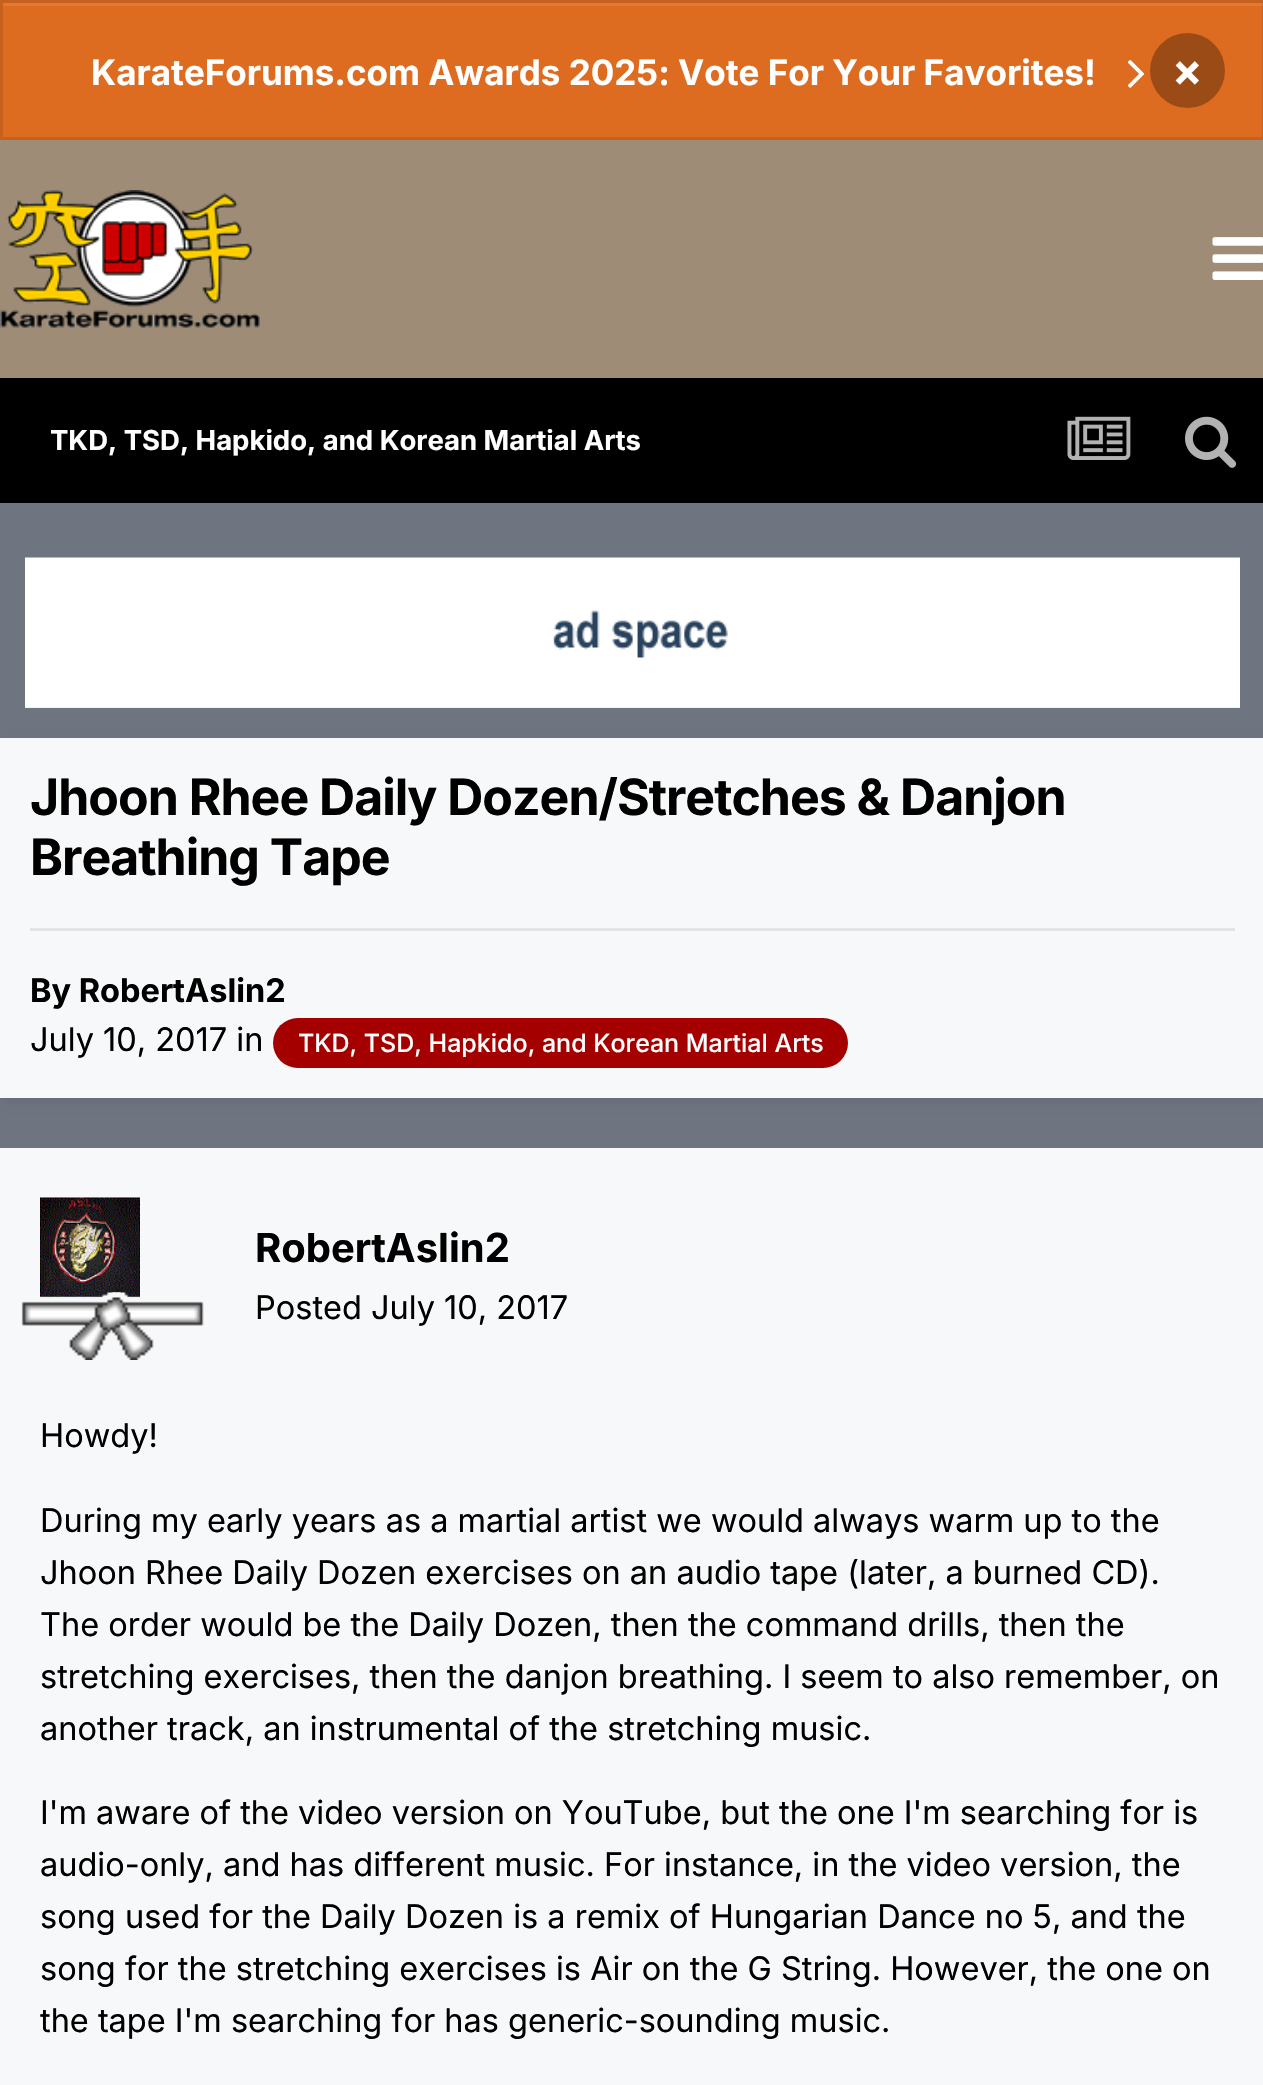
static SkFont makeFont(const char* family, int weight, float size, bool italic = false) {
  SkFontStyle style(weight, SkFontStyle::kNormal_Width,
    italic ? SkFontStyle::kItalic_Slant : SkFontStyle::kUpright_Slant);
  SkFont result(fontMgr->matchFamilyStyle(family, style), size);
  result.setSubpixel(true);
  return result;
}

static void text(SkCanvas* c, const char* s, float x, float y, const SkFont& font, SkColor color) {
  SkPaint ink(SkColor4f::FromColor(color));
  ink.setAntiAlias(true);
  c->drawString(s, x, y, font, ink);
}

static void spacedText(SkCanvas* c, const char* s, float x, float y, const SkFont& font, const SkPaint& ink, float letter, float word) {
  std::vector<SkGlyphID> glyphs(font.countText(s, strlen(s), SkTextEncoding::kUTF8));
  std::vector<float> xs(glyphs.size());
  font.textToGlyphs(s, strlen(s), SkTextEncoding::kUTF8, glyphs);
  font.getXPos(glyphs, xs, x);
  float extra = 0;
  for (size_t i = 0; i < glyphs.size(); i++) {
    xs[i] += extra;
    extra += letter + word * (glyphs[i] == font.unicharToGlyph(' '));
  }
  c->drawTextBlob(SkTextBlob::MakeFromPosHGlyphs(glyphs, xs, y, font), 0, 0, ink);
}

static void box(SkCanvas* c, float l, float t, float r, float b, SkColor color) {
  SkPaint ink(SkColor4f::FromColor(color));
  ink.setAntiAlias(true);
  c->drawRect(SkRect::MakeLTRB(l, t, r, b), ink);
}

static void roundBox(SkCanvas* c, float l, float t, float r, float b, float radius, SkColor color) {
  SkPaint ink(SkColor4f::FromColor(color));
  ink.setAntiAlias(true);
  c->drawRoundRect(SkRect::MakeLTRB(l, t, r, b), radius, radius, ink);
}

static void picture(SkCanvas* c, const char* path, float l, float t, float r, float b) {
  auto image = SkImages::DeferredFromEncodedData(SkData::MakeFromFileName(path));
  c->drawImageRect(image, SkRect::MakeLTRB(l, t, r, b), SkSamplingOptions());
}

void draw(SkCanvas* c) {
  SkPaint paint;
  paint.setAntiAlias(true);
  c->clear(0xff6e7480);
  box(c, 0, 0, 1263, 140, 0xffdd6b20);
  box(c, 3, 3, 1263, 6, 0xffe07a36);
  paint.setStyle(SkPaint::kStroke_Style);
  paint.setStrokeWidth(3);
  paint.setColor(0x1a000000);
  c->drawRect(SkRect::MakeLTRB(1.5f, 1.5f, 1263.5f, 138.5f), paint);
  SkFont face1 = makeFont("Inter", 700, 35);
  text(c, "KarateForums.com Awards 2025: Vote For Your Favorites!", 91, 85, face1, 0xffffffff);
  picture(c, "img_01.png", 1127, 60, 1144, 88);
  paint.setStyle(SkPaint::kFill_Style);
  paint.setColor(0xff9b4b16);
  c->drawCircle(1187.5f, 70.5f, 37.5f, paint);
  SkFont face2 = makeFont("Inter", 700, 45);
  text(c, "×", 1172, 86, face2, 0xffffffff);
  box(c, 0, 140, 1263, 378, 0xff9f8c76);
  picture(c, "img_02.png", 0, 190, 260, 328);
  picture(c, "img_03.png", 1212, 237, 1263, 280);
  box(c, 0, 378, 1263, 503, 0xff000000);
  SkFont face3 = makeFont("Inter", 700, 27.5f);
  text(c, "TKD, TSD, Hapkido, and Korean Martial Arts", 50, 450, face3, 0xffffffff);
  picture(c, "img_04.png", 1067, 416, 1131, 460);
  picture(c, "img_05.png", 1185, 416, 1237, 468);
  box(c, 25, 707, 1240, 708, 0xffebe7e2);
  picture(c, "img_06.png", 25, 557, 1240, 708);
  paint.setColor(0x1a000000);
  paint.setMaskFilter(SkMaskFilter::MakeBlur(kNormal_SkBlurStyle, 5));
  c->drawRect(SkRect::MakeLTRB(3, 745, 1263, 1100), paint);
  paint.setMaskFilter(nullptr);
  box(c, 0, 738, 1263, 1098, 0xfff7f8f9);
  SkFont face4 = makeFont("Inter", 700, 50);
  paint.setColor(0xff000000);
  spacedText(c, "Jhoon Rhee Daily Dozen/Stretches & Danjon", 30, 815, face4, paint, -1, 0);
  spacedText(c, "Breathing Tape", 30, 875, face4, paint, -1, 0);
  box(c, 30, 928, 1235, 931, 0xffe3e4e5);
  SkFont face5 = makeFont("Inter", 700, 32.5f);
  text(c, "By RobertAslin2", 30, 1002, face5, 0xff000000);
  SkFont face6 = makeFont("Inter", 400, 32.5f);
  text(c, "July 10, 2017 in", 30, 1051, face6, 0xff000000);
  roundBox(c, 273, 1018, 848, 1068, 25, 0xffa50000);
  SkFont face7 = makeFont("Inter", 500, 25);
  text(c, "TKD, TSD, Hapkido, and Korean Martial Arts", 298, 1052, face7, 0xffffffff);
  box(c, 0, 1148, 1263, 2085, 0xfff7f8f9);
  picture(c, "img_07.png", 40, 1197, 140, 1298);
  picture(c, "img_08.png", 21, 1292, 204, 1360);
  SkFont face8 = makeFont("Inter", 700, 40);
  text(c, "RobertAslin2", 255, 1262, face8, 0xff000000);
  text(c, "Posted July 10, 2017", 255, 1319, face6, 0xff000000);
  text(c, "Howdy!", 40, 1447, face6, 0xff000000);
  text(c, "During my early years as a martial artist we would always warm up to the", 40, 1532, face6, 0xff000000);
  text(c, "Jhoon Rhee Daily Dozen exercises on an audio tape (later, a burned CD).", 40, 1584, face6, 0xff000000);
  text(c, "The order would be the Daily Dozen, then the command drills, then the", 40, 1636, face6, 0xff000000);
  text(c, "stretching exercises, then the danjon breathing. I seem to also remember, on", 40, 1688, face6, 0xff000000);
  text(c, "another track, an instrumental of the stretching music.", 40, 1740, face6, 0xff000000);
  text(c, "I'm aware of the video version on YouTube, but the one I'm searching for is", 40, 1824, face6, 0xff000000);
  text(c, "audio-only, and has different music. For instance, in the video version, the", 40, 1876, face6, 0xff000000);
  text(c, "song used for the Daily Dozen is a remix of Hungarian Dance no 5, and the", 40, 1928, face6, 0xff000000);
  text(c, "song for the stretching exercises is Air on the G String. However, the one on", 40, 1980, face6, 0xff000000);
  text(c, "the tape I'm searching for has generic-sounding music.", 40, 2032, face6, 0xff000000);
}
